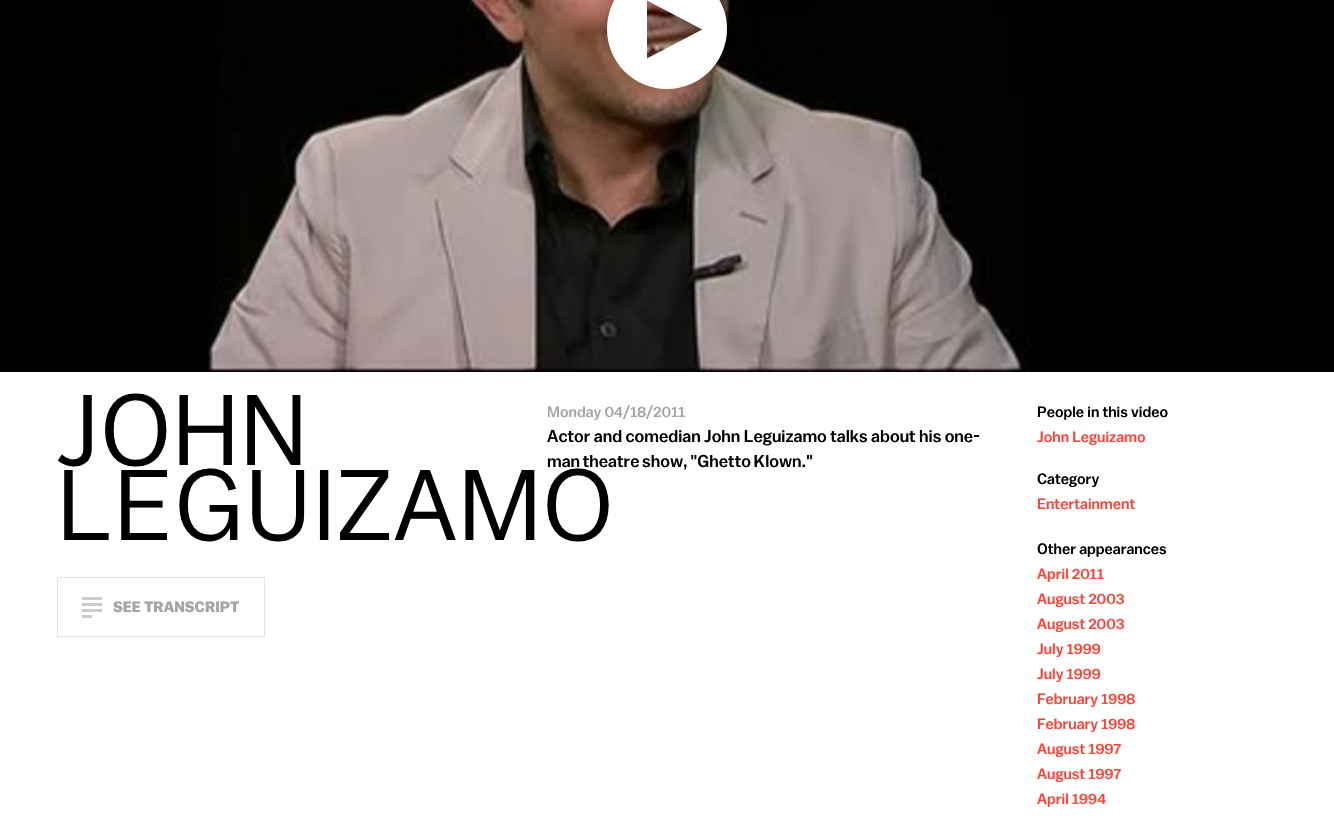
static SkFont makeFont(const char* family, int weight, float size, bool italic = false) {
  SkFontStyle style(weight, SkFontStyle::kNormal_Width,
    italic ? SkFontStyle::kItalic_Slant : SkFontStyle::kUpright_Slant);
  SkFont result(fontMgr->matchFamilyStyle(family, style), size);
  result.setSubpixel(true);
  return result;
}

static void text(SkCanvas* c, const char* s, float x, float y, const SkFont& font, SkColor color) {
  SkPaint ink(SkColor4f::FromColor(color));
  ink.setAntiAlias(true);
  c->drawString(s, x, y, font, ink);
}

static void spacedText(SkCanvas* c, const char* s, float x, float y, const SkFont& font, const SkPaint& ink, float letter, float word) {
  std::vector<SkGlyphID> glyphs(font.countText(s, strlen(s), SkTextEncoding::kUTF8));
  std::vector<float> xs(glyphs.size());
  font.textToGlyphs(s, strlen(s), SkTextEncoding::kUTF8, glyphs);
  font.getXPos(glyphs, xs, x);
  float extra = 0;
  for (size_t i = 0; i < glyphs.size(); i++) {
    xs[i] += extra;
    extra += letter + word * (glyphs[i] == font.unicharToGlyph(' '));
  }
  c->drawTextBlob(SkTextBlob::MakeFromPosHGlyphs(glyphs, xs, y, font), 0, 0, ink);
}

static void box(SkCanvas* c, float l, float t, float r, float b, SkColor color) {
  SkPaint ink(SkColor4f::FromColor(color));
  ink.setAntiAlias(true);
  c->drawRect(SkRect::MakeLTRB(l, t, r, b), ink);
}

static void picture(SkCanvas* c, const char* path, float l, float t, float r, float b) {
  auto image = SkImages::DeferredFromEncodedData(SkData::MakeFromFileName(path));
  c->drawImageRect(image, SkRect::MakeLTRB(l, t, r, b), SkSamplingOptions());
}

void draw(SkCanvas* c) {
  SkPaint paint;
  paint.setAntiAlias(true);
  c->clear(0xffffffff);
  box(c, 0, 0, 1334, 372, 0xff000000);
  picture(c, "img_01.png", 200, 0, 1031, 372);
  SkFont face1 = makeFont("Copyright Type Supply", 400, 100);
  paint.setColor(0xff000000);
  spacedText(c, "JOHN", 57, 465, face1, paint, 1, 0);
  spacedText(c, "LEGUIZAMO", 57, 540, face1, paint, 1, 0);
  paint.setColor(0xffcccccc);
  c->drawPath(SkPathBuilder().moveTo(469, 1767).lineTo(489, 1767).lineTo(489, 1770).lineTo(469, 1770).close().moveTo(469, 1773).lineTo(489, 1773).lineTo(489, 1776).lineTo(469, 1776).close().moveTo(469, 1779).lineTo(489, 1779).lineTo(489, 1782).lineTo(469, 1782).close().moveTo(469, 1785).lineTo(479, 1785).lineTo(479, 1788).lineTo(469, 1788).close().moveTo(82, 597).lineTo(102, 597).lineTo(102, 600).lineTo(82, 600).close().moveTo(82, 603).lineTo(102, 603).lineTo(102, 606).lineTo(82, 606).close().moveTo(82, 609).lineTo(102, 609).lineTo(102, 612).lineTo(82, 612).close().moveTo(82, 615).lineTo(92, 615).lineTo(92, 618).lineTo(82, 618).close().detach(), paint);
  paint.setStyle(SkPaint::kStroke_Style);
  paint.setStrokeWidth(1);
  paint.setColor(0xffe5e5e5);
  c->drawRect(SkRect::MakeLTRB(57.5f, 577.5f, 264.5f, 636.5f), paint);
  SkFont face2 = makeFont("Copyright Type Supply", 600, 15);
  text(c, "SEE TRANSCRIPT", 113, 612, face2, 0xffa5a5a5);
  SkFont face3 = makeFont("Copyright Type Supply", 500, 15);
  text(c, "Monday 04/18/2011", 547, 417, face3, 0xffa5a5a5);
  SkFont face4 = makeFont("Copyright Type Supply", 500, 17);
  paint.setStyle(SkPaint::kFill_Style);
  paint.setColor(0xff000000);
  spacedText(c, "Actor and comedian John Leguizamo talks about his one-", 547, 442, face4, paint, 0, -0.25f);
  spacedText(c, "man theatre show, \"Ghetto Klown.\"", 547, 467, face4, paint, 0, -1);
  text(c, "People in this video", 1037, 417, face3, 0xff000000);
  text(c, "John Leguizamo", 1037, 442, face3, 0xffff4237);
  text(c, "Category", 1037, 484, face3, 0xff000000);
  text(c, "Entertainment", 1037, 509, face3, 0xffff4237);
  text(c, "Other appearances", 1037, 554, face3, 0xff000000);
  text(c, "April 2011", 1037, 579, face3, 0xffff4237);
  text(c, "August 2003", 1037, 604, face3, 0xffff4237);
  text(c, "August 2003", 1037, 629, face3, 0xffff4237);
  text(c, "July 1999", 1037, 654, face3, 0xffff4237);
  text(c, "July 1999", 1037, 679, face3, 0xffff4237);
  text(c, "February 1998", 1037, 704, face3, 0xffff4237);
  text(c, "February 1998", 1037, 729, face3, 0xffff4237);
  text(c, "August 1997", 1037, 754, face3, 0xffff4237);
  text(c, "August 1997", 1037, 779, face3, 0xffff4237);
  text(c, "April 1994", 1037, 804, face3, 0xffff4237);
}
